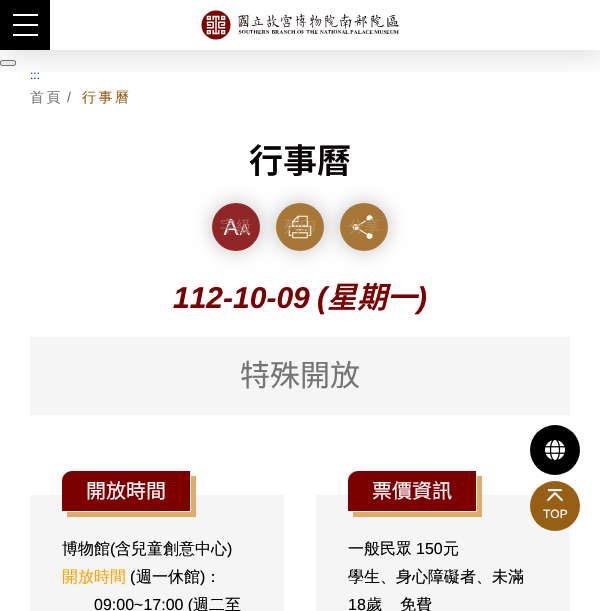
static SkFont makeFont(const char* family, int weight, float size, bool italic = false) {
  SkFontStyle style(weight, SkFontStyle::kNormal_Width,
    italic ? SkFontStyle::kItalic_Slant : SkFontStyle::kUpright_Slant);
  SkFont result(fontMgr->matchFamilyStyle(family, style), size);
  result.setSubpixel(true);
  return result;
}

static void text(SkCanvas* c, const char* s, float x, float y, const SkFont& font, SkColor color) {
  SkPaint ink(SkColor4f::FromColor(color));
  ink.setAntiAlias(true);
  c->drawString(s, x, y, font, ink);
}

static void spacedText(SkCanvas* c, const char* s, float x, float y, const SkFont& font, const SkPaint& ink, float letter, float word) {
  std::vector<SkGlyphID> glyphs(font.countText(s, strlen(s), SkTextEncoding::kUTF8));
  std::vector<float> xs(glyphs.size());
  font.textToGlyphs(s, strlen(s), SkTextEncoding::kUTF8, glyphs);
  font.getXPos(glyphs, xs, x);
  float extra = 0;
  for (size_t i = 0; i < glyphs.size(); i++) {
    xs[i] += extra;
    extra += letter + word * (glyphs[i] == font.unicharToGlyph(' '));
  }
  c->drawTextBlob(SkTextBlob::MakeFromPosHGlyphs(glyphs, xs, y, font), 0, 0, ink);
}

static void box(SkCanvas* c, float l, float t, float r, float b, SkColor color) {
  SkPaint ink(SkColor4f::FromColor(color));
  ink.setAntiAlias(true);
  c->drawRect(SkRect::MakeLTRB(l, t, r, b), ink);
}

static void picture(SkCanvas* c, const char* path, float l, float t, float r, float b) {
  auto image = SkImages::DeferredFromEncodedData(SkData::MakeFromFileName(path));
  c->drawImageRect(image, SkRect::MakeLTRB(l, t, r, b), SkSamplingOptions());
}

void draw(SkCanvas* c) {
  SkPaint paint;
  paint.setAntiAlias(true);
  c->clear(0xffffffff);
  paint.setColor(0xffefefef);
  c->drawRoundRect(SkRect::MakeLTRB(0.5f, 60.5f, 15.5f, 65.5f), 1.5f, 1.5f, paint);
  paint.setStyle(SkPaint::kStroke_Style);
  paint.setStrokeWidth(1);
  paint.setColor(0xff767676);
  c->drawRoundRect(SkRect::MakeLTRB(0.5f, 60.5f, 15.5f, 65.5f), 1.5f, 1.5f, paint);
  c->save();
  c->clipRect(SkRect::MakeLTRB(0, 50, 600, 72));
  paint.setStyle(SkPaint::kFill_Style);
  paint.setColor(0x26000000);
  paint.setMaskFilter(SkMaskFilter::MakeBlur(kNormal_SkBlurStyle, 16));
  c->drawRect(SkRect::MakeLTRB(4, 4, 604, 54), paint);
  paint.setMaskFilter(nullptr);
  c->restore();
  box(c, 0, 0, 50, 50, 0xff000000);
  box(c, 13, 24, 38, 26, 0xffffffff);
  box(c, 13, 14, 38, 16, 0xffffffff);
  box(c, 13, 34, 38, 36, 0xffffffff);
  picture(c, "img_01.png", 201, 10, 399, 40);
  paint.setColor(0xff000000);
  c->drawCircle(555, 450, 25, paint);
  picture(c, "img_02.png", 545, 440, 565, 460);
  SkFont face1 = makeFont("Liberation Sans", 400, 12);
  text(c, ":::", 30, 79, face1, 0xff0000ee);
  SkFont face2 = makeFont("WenQuanYi Zen Hei", 500, 14);
  paint.setColor(0xff757575);
  spacedText(c, "首頁", 30, 102, face2, paint, 2.5f, 0);
  SkFont face3 = makeFont("Liberation Sans", 400, 14);
  spacedText(c, "/", 67, 102, face3, paint, 2.5f, 0);
  paint.setColor(0xff975f14);
  spacedText(c, "行事曆", 82, 102, face2, paint, 2.5f, 0);
  SkFont face4 = makeFont("Noto Sans TC", 600, 34);
  text(c, "行事曆", 249, 173, face4, 0xff080404);
  c->save();
  c->clipPath(SkPathBuilder(SkPathFillType::kEvenOdd).moveTo(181, 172).lineTo(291, 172).lineTo(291, 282).lineTo(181, 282).close().moveTo(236, 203).cubicTo(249.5f, 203, 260, 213.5f, 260, 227).cubicTo(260, 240.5f, 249.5f, 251, 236, 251).cubicTo(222.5f, 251, 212, 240.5f, 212, 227).cubicTo(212, 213.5f, 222.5f, 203, 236, 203).close().detach(), true);
  paint.setColor(0x40000000);
  paint.setMaskFilter(SkMaskFilter::MakeBlur(kNormal_SkBlurStyle, 10));
  c->drawRoundRect(SkRect::MakeLTRB(212, 203, 260, 251), 24, 24, paint);
  paint.setMaskFilter(nullptr);
  c->restore();
  paint.setColor(0xd97d0000);
  c->drawCircle(236, 227, 24, paint);
  picture(c, "img_03.png", 223, 218, 250, 236);
  SkFont face5 = makeFont("WenQuanYi Zen Hei", 500, 16);
  text(c, "字級", 220, 232, face5, 0xffad5d5d);
  c->save();
  c->clipPath(SkPathBuilder(SkPathFillType::kEvenOdd).moveTo(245, 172).lineTo(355, 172).lineTo(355, 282).lineTo(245, 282).close().moveTo(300, 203).cubicTo(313.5f, 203, 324, 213.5f, 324, 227).cubicTo(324, 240.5f, 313.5f, 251, 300, 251).cubicTo(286.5f, 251, 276, 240.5f, 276, 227).cubicTo(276, 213.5f, 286.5f, 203, 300, 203).close().detach(), true);
  paint.setColor(0x40000000);
  paint.setMaskFilter(SkMaskFilter::MakeBlur(kNormal_SkBlurStyle, 10));
  c->drawRoundRect(SkRect::MakeLTRB(276, 203, 324, 251), 24, 24, paint);
  paint.setMaskFilter(nullptr);
  c->restore();
  paint.setColor(0xd9975f14);
  c->drawCircle(300, 227, 24, paint);
  picture(c, "img_04.png", 288, 215, 312, 239);
  text(c, "列印", 284, 232, face5, 0xffb68e59);
  c->save();
  c->clipPath(SkPathBuilder(SkPathFillType::kEvenOdd).moveTo(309, 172).lineTo(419, 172).lineTo(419, 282).lineTo(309, 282).close().moveTo(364, 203).cubicTo(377.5f, 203, 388, 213.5f, 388, 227).cubicTo(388, 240.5f, 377.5f, 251, 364, 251).cubicTo(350.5f, 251, 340, 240.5f, 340, 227).cubicTo(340, 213.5f, 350.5f, 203, 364, 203).close().detach(), true);
  paint.setColor(0x40000000);
  paint.setMaskFilter(SkMaskFilter::MakeBlur(kNormal_SkBlurStyle, 10));
  c->drawRoundRect(SkRect::MakeLTRB(340, 203, 388, 251), 24, 24, paint);
  paint.setMaskFilter(nullptr);
  c->restore();
  paint.setColor(0xd9975f14);
  c->drawCircle(364, 227, 24, paint);
  picture(c, "img_05.png", 352, 215, 373, 239);
  text(c, "分享", 348, 232, face5, 0xffb68e59);
  SkFont face6 = makeFont("Liberation Sans", 700, 30, true);
  text(c, "112-10-09", 173, 308, face6, 0xff7d0000);
  text(c, "(", 317, 308, face6, 0xff7d0000);
  SkFont face7 = makeFont("Noto Sans TC", 600, 30, true);
  text(c, "星期一", 327, 308, face7, 0xff7d0000);
  text(c, ")", 417, 308, face6, 0xff7d0000);
  box(c, 30, 337, 570, 415, 0xfff5f5f5);
  SkFont face8 = makeFont("Noto Sans TC", 400, 30);
  text(c, "特殊開放", 240, 386, face8, 0xff757575);
  box(c, 30, 495, 284, 611, 0xfff5f5f5);
  paint.setColor(0xffe1ac67);
  c->drawPath(SkPathBuilder().moveTo(67, 512).lineTo(67, 517).lineTo(196, 517).lineTo(196, 476).lineTo(191, 476).lineTo(191, 512).close().detach(), paint);
  paint.setColor(0xff7d0000);
  c->drawPath(SkPathBuilder().moveTo(72, 471).lineTo(190, 471).lineTo(190, 511).lineTo(62, 511).lineTo(62, 481).cubicTo(62, 475.5f, 66.5f, 471, 72, 471).close().detach(), paint);
  box(c, 190, 471, 191, 495, 0xfff5f5f5);
  SkFont face9 = makeFont("Noto Sans TC", 400, 20);
  text(c, "開放時間", 86, 498, face9, 0xffffffff);
  text(c, "博物館", 62, 554, face5, 0xff000000);
  SkFont face10 = makeFont("Liberation Sans", 400, 16);
  text(c, "(", 110, 554, face10, 0xff000000);
  text(c, "含兒童創意中心", 115, 554, face5, 0xff000000);
  text(c, ")", 227, 554, face10, 0xff000000);
  text(c, "開放時間", 62, 582, face5, 0xffffa500);
  text(c, "(", 130, 582, face10, 0xff000000);
  text(c, "週一休館", 136, 582, face5, 0xff000000);
  text(c, ")", 200, 582, face10, 0xff000000);
  text(c, "：", 205, 582, face5, 0xff000000);
  text(c, "09:00~17:00 (", 94, 610, face10, 0xff000000);
  text(c, "週二至", 193, 610, face5, 0xff000000);
  box(c, 316, 495, 570, 611, 0xfff5f5f5);
  paint.setColor(0xffe1ac67);
  c->drawPath(SkPathBuilder().moveTo(353, 512).lineTo(353, 517).lineTo(482, 517).lineTo(482, 476).lineTo(477, 476).lineTo(477, 512).close().detach(), paint);
  paint.setColor(0xff7d0000);
  c->drawPath(SkPathBuilder().moveTo(358, 471).lineTo(476, 471).lineTo(476, 511).lineTo(348, 511).lineTo(348, 481).cubicTo(348, 475.5f, 352.5f, 471, 358, 471).close().detach(), paint);
  box(c, 476, 471, 477, 495, 0xfff5f5f5);
  text(c, "票價資訊", 372, 498, face9, 0xffffffff);
  text(c, "一般民眾", 348, 554, face5, 0xff000000);
  text(c, "150", 416, 554, face10, 0xff000000);
  text(c, "元", 443, 554, face5, 0xff000000);
  text(c, "學生、身心障礙者、未滿", 348, 582, face5, 0xff000000);
  text(c, "18", 348, 610, face10, 0xff000000);
  text(c, "歲", 366, 610, face5, 0xff000000);
  text(c, "免費", 400, 610, face5, 0xff000000);
  paint.setColor(0xff975f14);
  c->drawCircle(555, 506, 25, paint);
  picture(c, "img_06.png", 547, 489, 563, 501);
  text(c, "TOP", 543, 518, face1, 0xffffffff);
}
